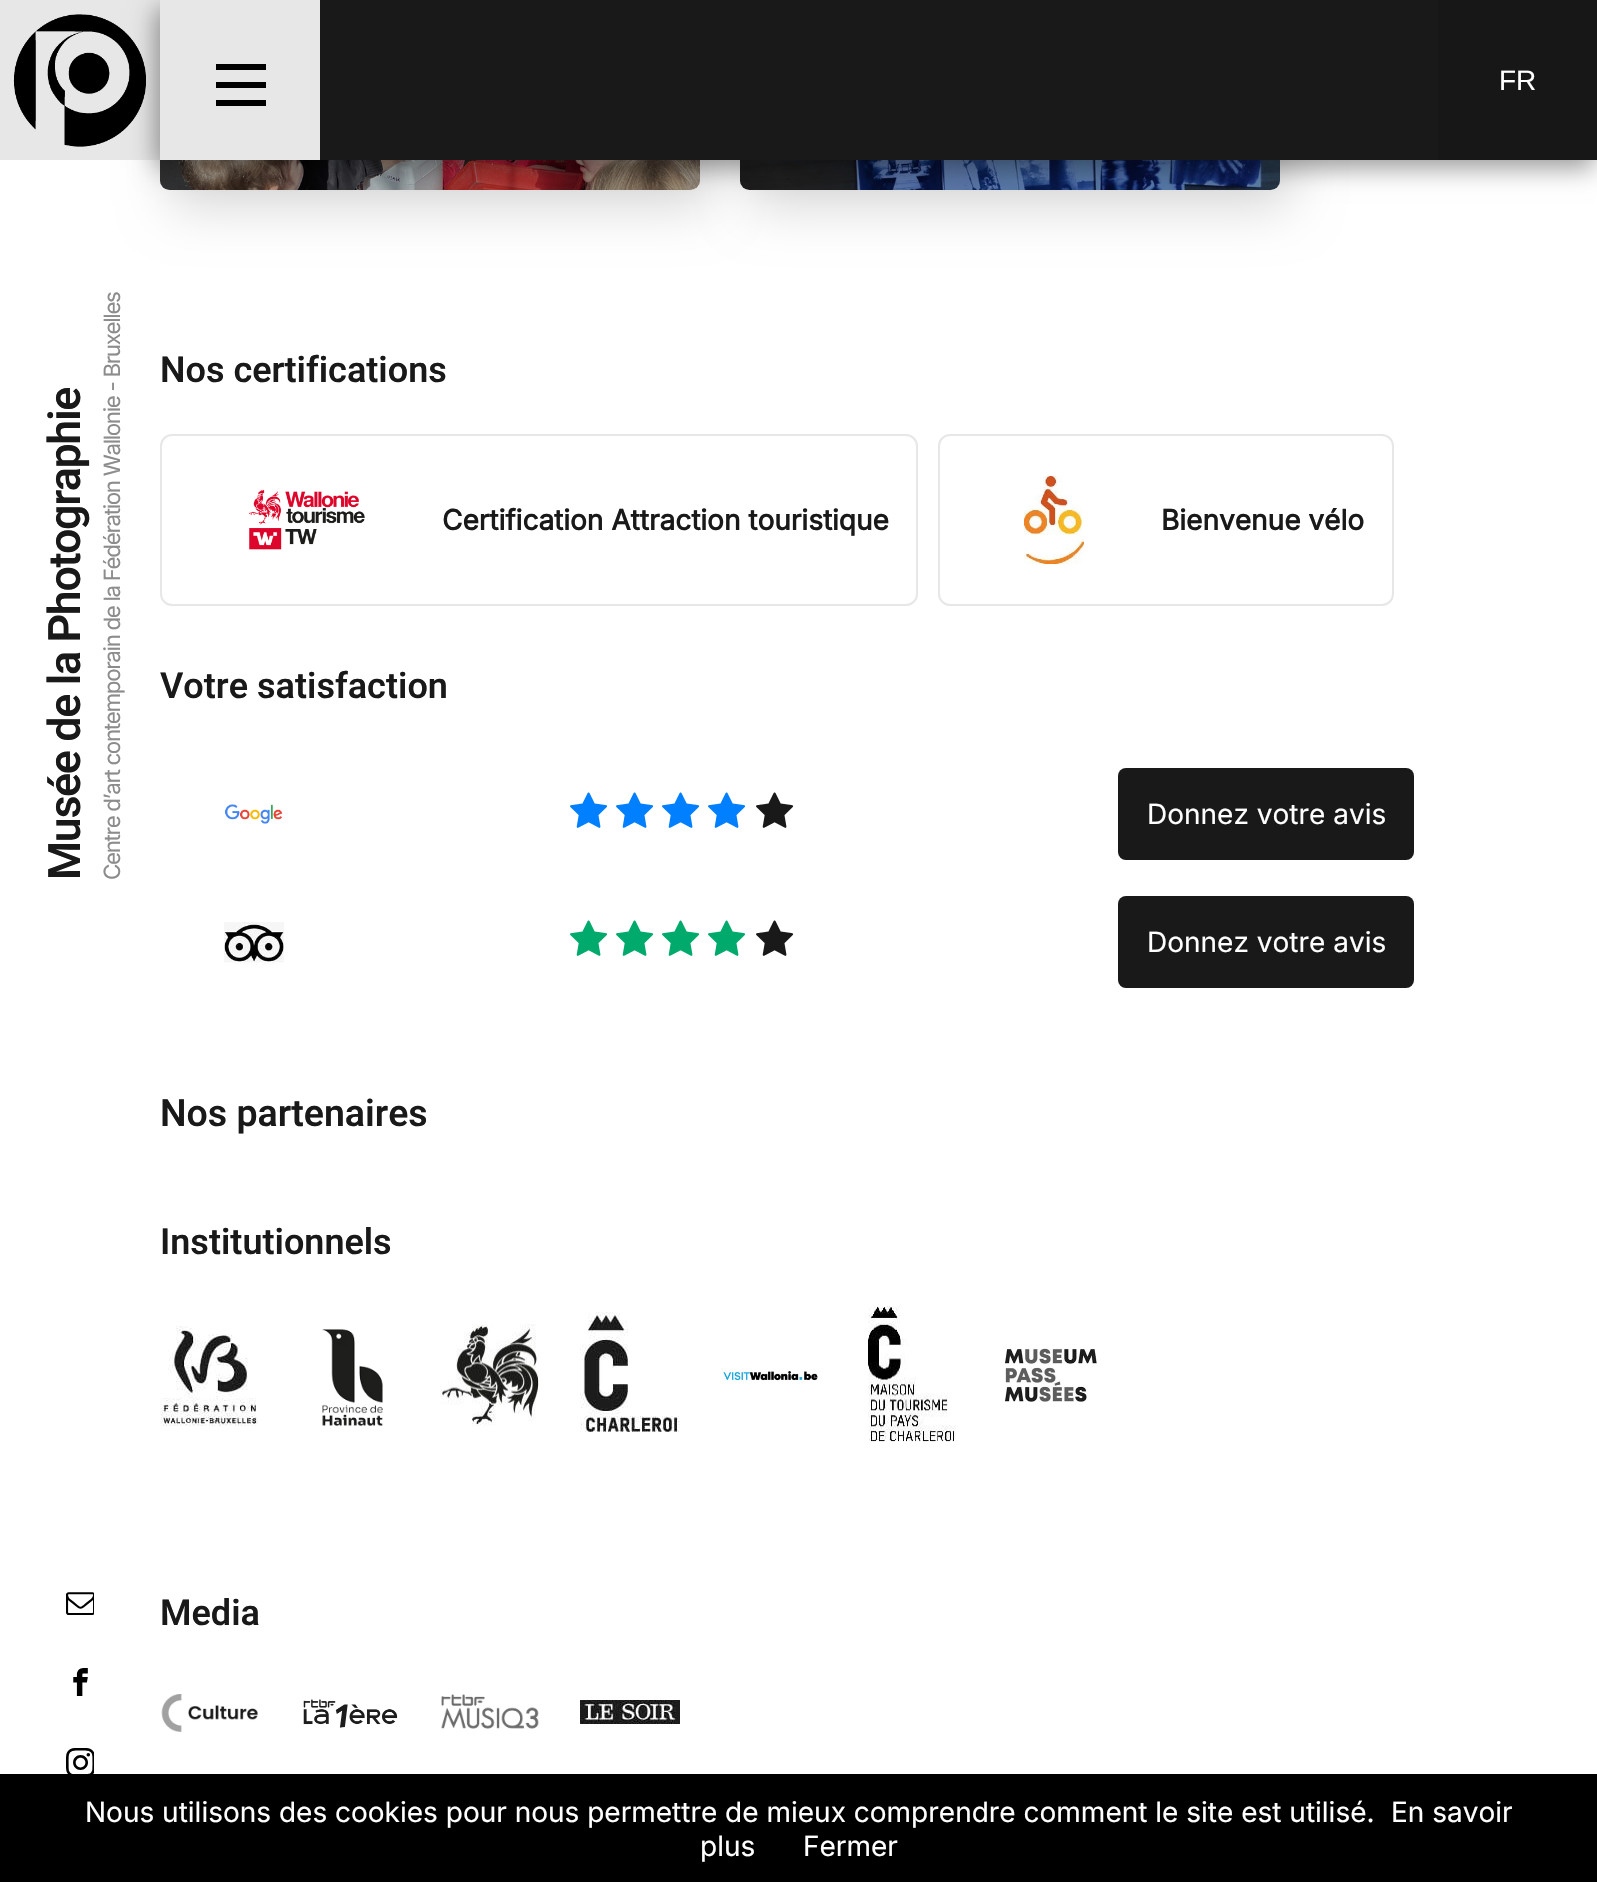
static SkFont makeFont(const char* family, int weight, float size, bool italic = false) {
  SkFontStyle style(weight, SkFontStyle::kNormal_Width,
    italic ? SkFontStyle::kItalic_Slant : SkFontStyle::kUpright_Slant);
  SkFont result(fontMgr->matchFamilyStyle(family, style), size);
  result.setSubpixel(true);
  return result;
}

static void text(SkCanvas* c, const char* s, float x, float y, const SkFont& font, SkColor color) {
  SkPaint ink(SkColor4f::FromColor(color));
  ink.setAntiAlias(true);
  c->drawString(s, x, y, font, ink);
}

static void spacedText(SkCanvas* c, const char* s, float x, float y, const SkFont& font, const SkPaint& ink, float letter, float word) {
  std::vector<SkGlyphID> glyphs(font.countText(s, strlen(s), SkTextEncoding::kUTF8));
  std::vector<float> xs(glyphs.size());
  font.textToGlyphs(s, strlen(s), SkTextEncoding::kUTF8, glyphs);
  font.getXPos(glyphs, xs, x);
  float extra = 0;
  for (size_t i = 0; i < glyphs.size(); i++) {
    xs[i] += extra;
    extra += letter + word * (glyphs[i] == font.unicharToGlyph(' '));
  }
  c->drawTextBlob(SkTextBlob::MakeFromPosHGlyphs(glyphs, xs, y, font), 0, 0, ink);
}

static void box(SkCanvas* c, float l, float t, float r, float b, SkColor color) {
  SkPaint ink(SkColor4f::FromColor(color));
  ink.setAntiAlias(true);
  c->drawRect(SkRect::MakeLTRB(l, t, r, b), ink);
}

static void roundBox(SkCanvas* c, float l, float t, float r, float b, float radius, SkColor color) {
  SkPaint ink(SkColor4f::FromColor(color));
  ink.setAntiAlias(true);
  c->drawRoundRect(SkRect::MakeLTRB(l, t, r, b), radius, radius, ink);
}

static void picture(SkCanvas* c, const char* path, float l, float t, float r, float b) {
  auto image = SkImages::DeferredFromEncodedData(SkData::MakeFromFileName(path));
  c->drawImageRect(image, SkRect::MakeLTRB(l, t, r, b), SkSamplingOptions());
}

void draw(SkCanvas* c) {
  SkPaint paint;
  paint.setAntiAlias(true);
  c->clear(0xffffffff);
  picture(c, "img_02.png", 160, 160, 700, 190);
  picture(c, "img_03.png", 740, 160, 1280, 190);
  c->save();
  c->clipPath(SkPathBuilder(SkPathFillType::kEvenOdd).moveTo(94, 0).lineTo(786, 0).lineTo(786, 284).lineTo(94, 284).close().moveTo(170, -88).lineTo(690, -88).cubicTo(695.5f, -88, 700, -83.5f, 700, -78).lineTo(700, 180).cubicTo(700, 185.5f, 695.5f, 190, 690, 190).lineTo(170, 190).cubicTo(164.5f, 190, 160, 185.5f, 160, 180).lineTo(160, -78).cubicTo(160, -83.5f, 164.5f, -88, 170, -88).close().detach(), true);
  paint.setColor(0x26000000);
  paint.setMaskFilter(SkMaskFilter::MakeBlur(kNormal_SkBlurStyle, 25));
  c->drawRoundRect(SkRect::MakeLTRB(170, -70, 710, 208), 10, 10, paint);
  paint.setMaskFilter(nullptr);
  c->restore();
  box(c, 0, 0, 160, 160, 0xffe7e7e7);
  picture(c, "img_01.png", 13, 14, 146, 147);
  c->save();
  c->clipPath(SkPathBuilder(SkPathFillType::kEvenOdd).moveTo(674, 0).lineTo(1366, 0).lineTo(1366, 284).lineTo(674, 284).close().moveTo(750, -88).lineTo(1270, -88).cubicTo(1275.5f, -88, 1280, -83.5f, 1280, -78).lineTo(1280, 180).cubicTo(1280, 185.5f, 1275.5f, 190, 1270, 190).lineTo(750, 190).cubicTo(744.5f, 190, 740, 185.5f, 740, 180).lineTo(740, -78).cubicTo(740, -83.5f, 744.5f, -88, 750, -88).close().detach(), true);
  paint.setMaskFilter(SkMaskFilter::MakeBlur(kNormal_SkBlurStyle, 25));
  c->drawRoundRect(SkRect::MakeLTRB(750, -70, 1290, 208), 10, 10, paint);
  paint.setMaskFilter(nullptr);
  c->restore();
  roundBox(c, 160, -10, 700, 190, 10, 0x4d000000);
  roundBox(c, 740, -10, 1280, 190, 10, 0x4d000000);
  paint.setColor(0x66000000);
  paint.setMaskFilter(SkMaskFilter::MakeBlur(kNormal_SkBlurStyle, 12));
  c->drawRect(SkRect::MakeLTRB(156, 8, 1594, 168), paint);
  paint.setMaskFilter(nullptr);
  box(c, 320, 0, 1438, 160, 0xff191919);
  box(c, 160, 0, 320, 160, 0xffe7e7e7);
  box(c, 216, 64, 266, 70, 0xff000000);
  box(c, 216, 82, 266, 88, 0xff000000);
  box(c, 216, 100, 266, 106, 0xff000000);
  box(c, 1438, 0, 1597, 160, 0xff171717);
  SkFont face1 = makeFont("Liberation Sans", 400, 28);
  text(c, "FR", 1499, 90, face1, 0xffffffff);
  SkFont face2 = makeFont("Heebo", 600, 44.75f);
  paint.setColor(0xff191919);
  c->save();
  c->rotate(-90, 80, 880);
  spacedText(c, "Musée de la Photographie", 80, 880, face2, paint, -1.35f, 0);
  c->restore();
  SkFont face3 = makeFont("Inter", 400, 22.4f);
  paint.setColor(0xff8c8c8c);
  c->save();
  c->rotate(-90, 120, 880);
  spacedText(c, "Centre d’art contemporain de la Fédération Wallonie - Bruxelles", 120, 880, face3, paint, -1.35f, 0);
  c->restore();
  SkFont face4 = makeFont("Heebo", 600, 36);
  text(c, "Nos certifications", 160, 382, face4, 0xff191919);
  paint.setStyle(SkPaint::kStroke_Style);
  paint.setStrokeWidth(2);
  paint.setColor(0xffe7e7e7);
  c->drawRoundRect(SkRect::MakeLTRB(161, 435, 917, 605), 11, 11, paint);
  picture(c, "img_04.png", 249, 489, 365, 550);
  SkFont face5 = makeFont("Inter", 700, 28);
  text(c, "Certification Attraction touristique", 442, 530, face5, 0xff191919);
  c->drawRoundRect(SkRect::MakeLTRB(939, 435, 1393, 605), 11, 11, paint);
  picture(c, "img_05.png", 1024, 476, 1084, 564);
  text(c, "Bienvenue vélo", 1161, 530, face5, 0xff191919);
  text(c, "Votre satisfaction", 160, 698, face4, 0xff191919);
  picture(c, "img_06.png", 224, 804, 283, 824);
  picture(c, "img_07.png", 570, 792, 608, 828);
  picture(c, "img_07.png", 616, 792, 654, 828);
  picture(c, "img_07.png", 662, 792, 700, 828);
  picture(c, "img_07.png", 708, 792, 746, 828);
  picture(c, "img_08.png", 756, 792, 794, 828);
  roundBox(c, 1118, 768, 1414, 860, 8, 0xff191919);
  SkFont face6 = makeFont("Inter", 400, 28);
  text(c, "Donnez votre avis", 1147, 824, face6, 0xffffffff);
  picture(c, "img_09.png", 224, 922, 284, 965);
  picture(c, "img_10.png", 570, 920, 608, 956);
  picture(c, "img_10.png", 616, 920, 654, 956);
  picture(c, "img_10.png", 662, 920, 700, 956);
  picture(c, "img_10.png", 708, 920, 746, 956);
  picture(c, "img_08.png", 756, 920, 794, 956);
  roundBox(c, 1118, 896, 1414, 988, 8, 0xff191919);
  text(c, "Donnez votre avis", 1147, 952, face6, 0xffffffff);
  SkFont face7 = makeFont("Heebo", 600, 37.5f);
  text(c, "Nos partenaires", 160, 1126, face7, 0xff191919);
  text(c, "Institutionnels", 160, 1254, face4, 0xff191919);
  picture(c, "img_11.png", 160, 1326, 258, 1426);
  picture(c, "img_12.png", 322, 1329, 383, 1426);
  picture(c, "img_13.png", 440, 1324, 540, 1426);
  picture(c, "img_14.png", 580, 1312, 680, 1432);
  picture(c, "img_15.png", 723, 1370, 818, 1381);
  picture(c, "img_16.png", 868, 1306, 956, 1442);
  picture(c, "img_17.png", 1005, 1348, 1097, 1402);
  text(c, "Media", 160, 1625, face4, 0xff191919);
  picture(c, "img_18.png", 161, 1694, 258, 1732);
  picture(c, "img_19.png", 303, 1699, 398, 1728);
  picture(c, "img_20.png", 441, 1694, 539, 1729);
  picture(c, "img_21.png", 580, 1700, 680, 1724);
  picture(c, "img_22.png", 66, 1592, 94, 1615);
  picture(c, "img_23.png", 73, 1668, 88, 1696);
  picture(c, "img_24.png", 66, 1748, 94, 1774);
  box(c, 0, 1774, 1597, 1882, 0xff000000);
  text(c, "Nous utilisons des cookies pour nous permettre de mieux comprendre comment le site est utilisé.", 85, 1822, face6, 0xffffffff);
  text(c, "En savoir", 1391, 1822, face6, 0xffffffff);
  text(c, "plus", 700, 1856, face6, 0xffffffff);
  text(c, "Fermer", 803, 1856, face6, 0xffffffff);
}
